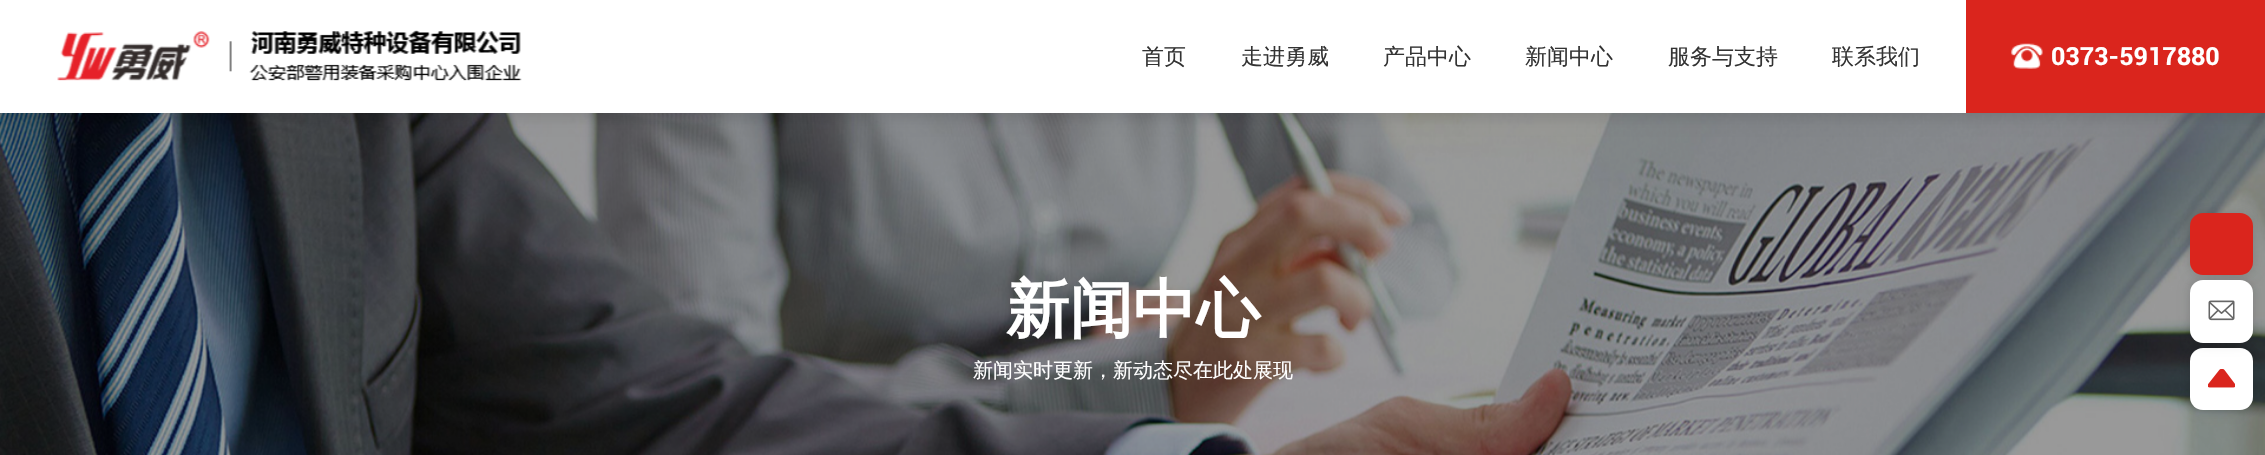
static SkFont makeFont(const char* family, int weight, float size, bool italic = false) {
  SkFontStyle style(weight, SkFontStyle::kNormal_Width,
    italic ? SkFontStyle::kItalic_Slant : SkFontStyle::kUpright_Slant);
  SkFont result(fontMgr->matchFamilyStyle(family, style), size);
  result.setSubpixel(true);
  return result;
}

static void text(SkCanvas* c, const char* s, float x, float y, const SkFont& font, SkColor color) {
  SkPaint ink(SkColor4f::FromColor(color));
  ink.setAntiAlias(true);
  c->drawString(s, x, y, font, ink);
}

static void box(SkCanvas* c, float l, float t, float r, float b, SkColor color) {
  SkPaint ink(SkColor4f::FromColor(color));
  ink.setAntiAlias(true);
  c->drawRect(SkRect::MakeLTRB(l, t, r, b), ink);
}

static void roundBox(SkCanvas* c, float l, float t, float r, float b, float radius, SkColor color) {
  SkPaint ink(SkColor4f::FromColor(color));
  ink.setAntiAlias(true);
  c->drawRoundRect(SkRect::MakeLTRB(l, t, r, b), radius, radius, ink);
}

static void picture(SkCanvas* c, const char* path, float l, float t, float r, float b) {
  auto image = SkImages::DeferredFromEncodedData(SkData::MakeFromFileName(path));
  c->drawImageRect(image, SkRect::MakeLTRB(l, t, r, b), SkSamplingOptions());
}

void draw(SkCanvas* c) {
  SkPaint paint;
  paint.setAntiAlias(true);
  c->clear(0xff000000);
  picture(c, "img_03.png", 0, 113, 2265, 455);
  paint.setColor(0x1a000000);
  paint.setMaskFilter(SkMaskFilter::MakeBlur(kNormal_SkBlurStyle, 6));
  c->drawRect(SkRect::MakeLTRB(0, 6, 2265, 119), paint);
  paint.setMaskFilter(nullptr);
  box(c, 0, 0, 1966, 113, 0xffffffff);
  picture(c, "img_01.png", 57, 30, 522, 81);
  SkFont face1 = makeFont("WenQuanYi Zen Hei", 500, 22);
  text(c, "首页", 1142, 64, face1, 0xff333333);
  text(c, "走进勇威", 1241, 64, face1, 0xff333333);
  text(c, "产品中心", 1383, 64, face1, 0xff333333);
  text(c, "新闻中心", 1525, 64, face1, 0xff333333);
  text(c, "服务与支持", 1668, 64, face1, 0xff333333);
  text(c, "联系我们", 1832, 64, face1, 0xff333333);
  box(c, 1966, 0, 2265, 113, 0xffda251d);
  picture(c, "img_02.png", 2011, 43, 2043, 69);
  SkFont face2 = makeFont("Roboto", 700, 25);
  text(c, "0373-5917880", 2051, 65, face2, 0xffffffff);
  SkFont face3 = makeFont("WenQuanYi Zen Hei", 700, 63.5f);
  text(c, "新闻中心", 1006, 331, face3, 0xffffffff);
  SkFont face4 = makeFont("WenQuanYi Zen Hei", 500, 20);
  text(c, "新闻实时更新，新动态尽在此处展现", 973, 377, face4, 0xffffffff);
  paint.setColor(0x26000000);
  paint.setMaskFilter(SkMaskFilter::MakeBlur(kNormal_SkBlurStyle, 6));
  c->drawRoundRect(SkRect::MakeLTRB(2190, 213, 2253, 275), 13, 13, paint);
  paint.setMaskFilter(nullptr);
  paint.setMaskFilter(SkMaskFilter::MakeBlur(kNormal_SkBlurStyle, 6));
  c->drawRoundRect(SkRect::MakeLTRB(2190, 348, 2253, 410), 13, 13, paint);
  paint.setMaskFilter(nullptr);
  roundBox(c, 2190, 348, 2253, 410, 13, 0xffffffff);
  paint.setMaskFilter(SkMaskFilter::MakeBlur(kNormal_SkBlurStyle, 6));
  c->drawRoundRect(SkRect::MakeLTRB(2190, 280, 2253, 343), 13, 13, paint);
  paint.setMaskFilter(nullptr);
  roundBox(c, 2190, 213, 2253, 275, 13, 0xffda251d);
  roundBox(c, 2190, 280, 2253, 343, 13, 0xffffffff);
  picture(c, "img_04.png", 2208, 300, 2235, 321);
  picture(c, "img_05.png", 2208, 369, 2235, 388);
}
